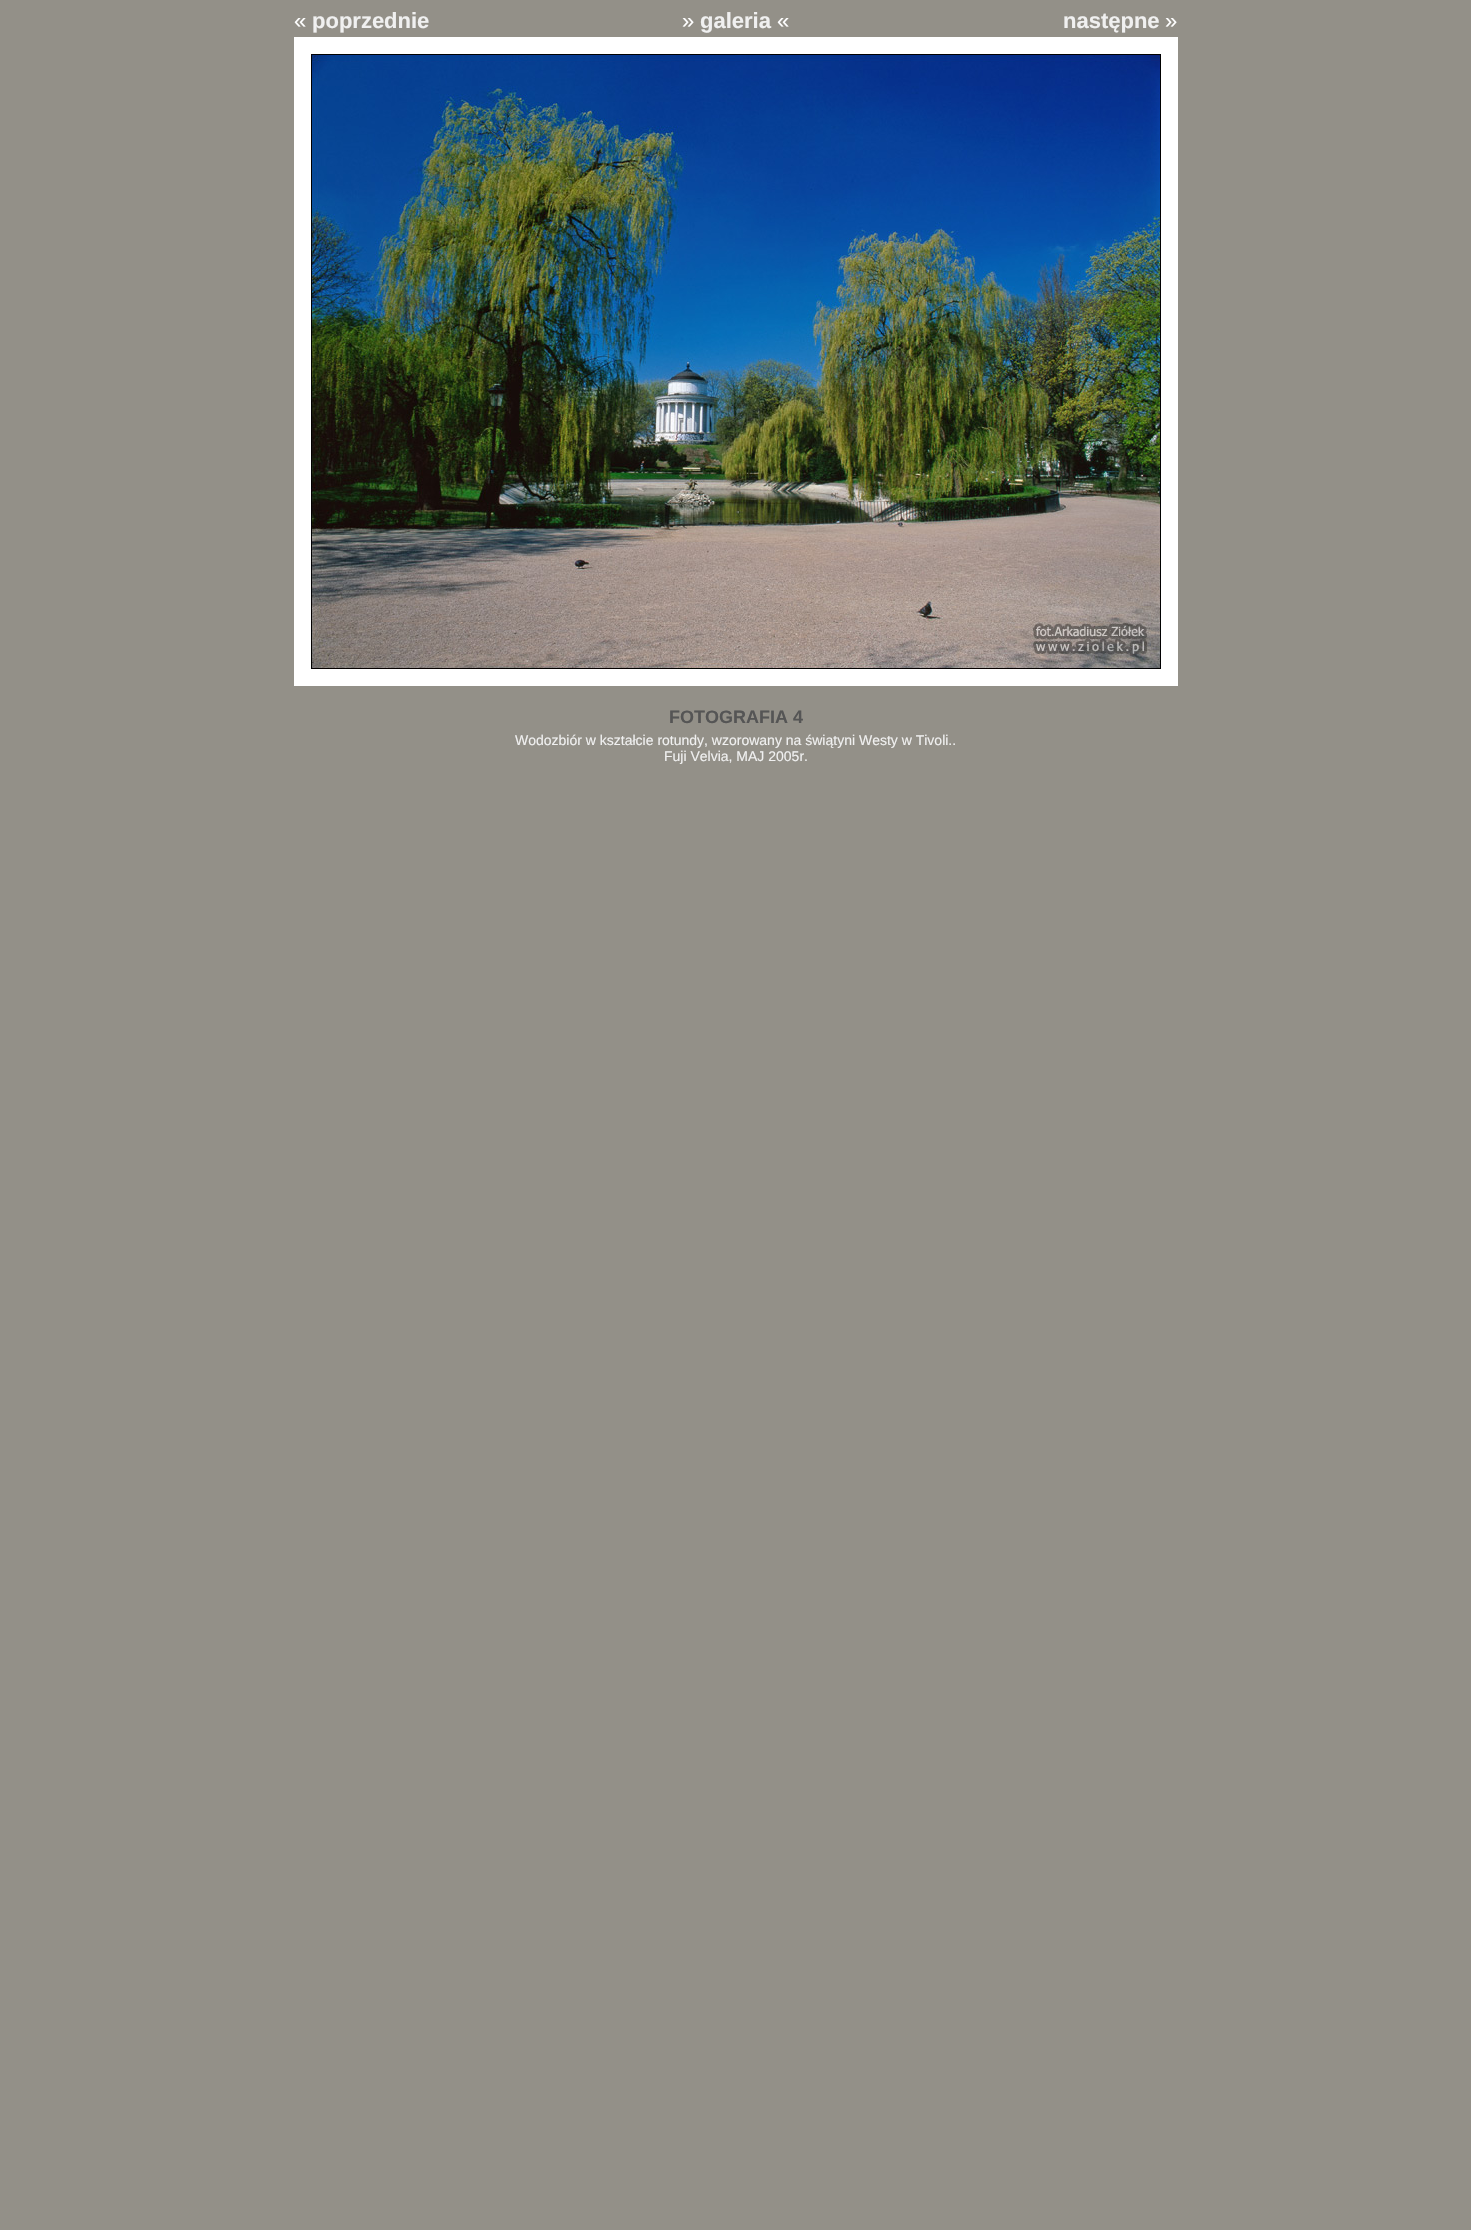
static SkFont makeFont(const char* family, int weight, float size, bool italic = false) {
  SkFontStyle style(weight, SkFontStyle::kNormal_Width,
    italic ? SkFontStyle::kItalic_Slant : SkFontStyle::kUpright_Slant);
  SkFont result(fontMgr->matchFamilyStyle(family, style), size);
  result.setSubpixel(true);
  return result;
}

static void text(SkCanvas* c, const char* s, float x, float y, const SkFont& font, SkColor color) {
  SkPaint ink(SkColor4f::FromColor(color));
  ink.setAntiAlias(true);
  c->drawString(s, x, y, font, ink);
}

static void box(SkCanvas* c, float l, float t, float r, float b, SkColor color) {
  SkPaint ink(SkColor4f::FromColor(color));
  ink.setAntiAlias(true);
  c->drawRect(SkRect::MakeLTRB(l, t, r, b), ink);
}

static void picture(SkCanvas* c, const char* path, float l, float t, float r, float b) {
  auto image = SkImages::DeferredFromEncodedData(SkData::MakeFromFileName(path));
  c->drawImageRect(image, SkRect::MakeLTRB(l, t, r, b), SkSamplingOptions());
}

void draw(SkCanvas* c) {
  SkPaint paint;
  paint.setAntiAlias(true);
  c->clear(0xff939088);
  SkFont face1 = makeFont("Liberation Sans", 400, 22);
  text(c, "«", 294, 28, face1, 0xffffffff);
  SkFont face2 = makeFont("Liberation Sans", 700, 22);
  text(c, "poprzednie", 312, 28, face2, 0xfff0f0f0);
  text(c, "»", 682, 28, face1, 0xffffffff);
  text(c, "galeria", 700, 28, face2, 0xfff0f0f0);
  text(c, "«", 777, 28, face1, 0xffffffff);
  text(c, "następne", 1063, 28, face2, 0xfff0f0f0);
  text(c, "»", 1165, 28, face1, 0xffffffff);
  box(c, 294, 37, 1178, 686, 0xffffffff);
  picture(c, "img_01.png", 311, 54, 1161, 669);
  SkFont face3 = makeFont("Liberation Sans", 700, 18);
  text(c, "FOTOGRAFIA 4", 669, 723, face3, 0xff555555);
  SkFont face4 = makeFont("Liberation Sans", 400, 14);
  text(c, "Wodozbiór w kształcie rotundy, wzorowany na świątyni Westy w Tivoli..", 515, 745, face4, 0xfff0f0f0);
  text(c, "Fuji Velvia, MAJ 2005r.", 664, 761, face4, 0xfff0f0f0);
}
